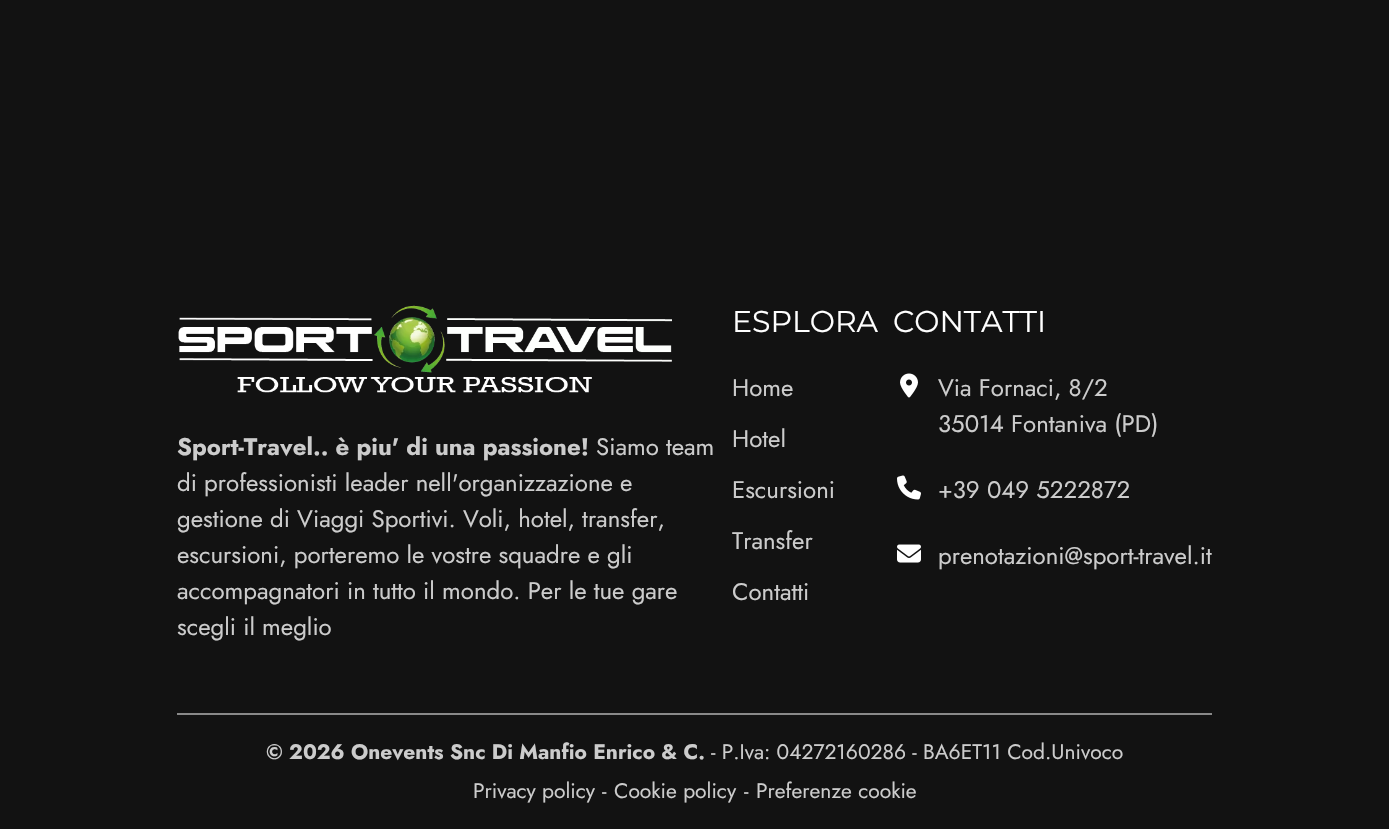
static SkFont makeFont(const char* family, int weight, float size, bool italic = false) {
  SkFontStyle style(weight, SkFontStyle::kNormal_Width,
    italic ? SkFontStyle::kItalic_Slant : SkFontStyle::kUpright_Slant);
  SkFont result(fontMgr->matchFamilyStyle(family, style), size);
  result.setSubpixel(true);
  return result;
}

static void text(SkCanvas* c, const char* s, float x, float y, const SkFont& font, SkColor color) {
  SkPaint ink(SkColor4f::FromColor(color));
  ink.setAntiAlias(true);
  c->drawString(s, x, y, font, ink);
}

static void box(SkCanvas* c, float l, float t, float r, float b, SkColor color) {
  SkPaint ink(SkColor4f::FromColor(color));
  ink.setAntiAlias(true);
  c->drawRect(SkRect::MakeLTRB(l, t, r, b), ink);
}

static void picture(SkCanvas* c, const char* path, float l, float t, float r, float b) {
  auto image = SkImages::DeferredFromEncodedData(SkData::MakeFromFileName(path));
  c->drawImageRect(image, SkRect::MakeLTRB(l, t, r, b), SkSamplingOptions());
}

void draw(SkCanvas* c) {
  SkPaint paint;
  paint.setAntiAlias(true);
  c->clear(0xff121212);
  picture(c, "img_01.png", 178, 305, 672, 393);
  SkFont face1 = makeFont("Jost", 700, 24);
  text(c, "Sport-Travel.. è piu' di una passione!", 177, 455, face1, 0xffcccccc);
  SkFont face2 = makeFont("Jost", 400, 24);
  text(c, "Siamo team", 596, 455, face2, 0xffcccccc);
  text(c, "di professionisti leader nell'organizzazione e", 177, 491, face2, 0xffcccccc);
  text(c, "gestione di Viaggi Sportivi. Voli, hotel, transfer,", 177, 527, face2, 0xffcccccc);
  text(c, "escursioni, porteremo le vostre squadre e gli", 177, 563, face2, 0xffcccccc);
  text(c, "accompagnatori in tutto il mondo. Per le tue gare", 177, 599, face2, 0xffcccccc);
  text(c, "scegli il meglio", 177, 635, face2, 0xffcccccc);
  SkFont face3 = makeFont("Montserrat", 100, 30);
  text(c, "ESPLORA", 732, 332, face3, 0xffffffff);
  text(c, "Home", 732, 396, face2, 0xffcccccc);
  text(c, "Hotel", 732, 447, face2, 0xffcccccc);
  text(c, "Escursioni", 732, 498, face2, 0xffcccccc);
  text(c, "Transfer", 732, 549, face2, 0xffcccccc);
  text(c, "Contatti", 732, 600, face2, 0xffcccccc);
  text(c, "CONTATTI", 893, 332, face3, 0xffffffff);
  picture(c, "img_02.png", 900, 373, 918, 398);
  text(c, "Via Fornaci, 8/2", 938, 396, face2, 0xffcccccc);
  text(c, "35014 Fontaniva (PD)", 938, 432, face2, 0xffcccccc);
  picture(c, "img_03.png", 897, 475, 921, 500);
  text(c, "+39 049 5222872", 938, 498, face2, 0xffcccccc);
  picture(c, "img_04.png", 897, 544, 921, 563);
  text(c, "prenotazioni@sport-travel.it", 938, 564, face2, 0xffcccccc);
  box(c, 177, 713, 1212, 715, 0xff898989);
  SkFont face4 = makeFont("Jost", 700, 21);
  text(c, "© 2026 Onevents Snc Di Manfio Enrico & C.", 266, 759, face4, 0xffcccccc);
  SkFont face5 = makeFont("Jost", 400, 21);
  text(c, "- P.Iva: 04272160286 - BA6ET11 Cod.Univoco", 711, 759, face5, 0xffcccccc);
  text(c, "Privacy policy", 473, 798, face5, 0xffcccccc);
  text(c, "-", 602, 798, face5, 0xffcccccc);
  text(c, "Cookie policy", 614, 798, face5, 0xffcccccc);
  text(c, "-", 744, 798, face5, 0xffcccccc);
  text(c, "Preferenze cookie", 756, 798, face5, 0xffcccccc);
}
